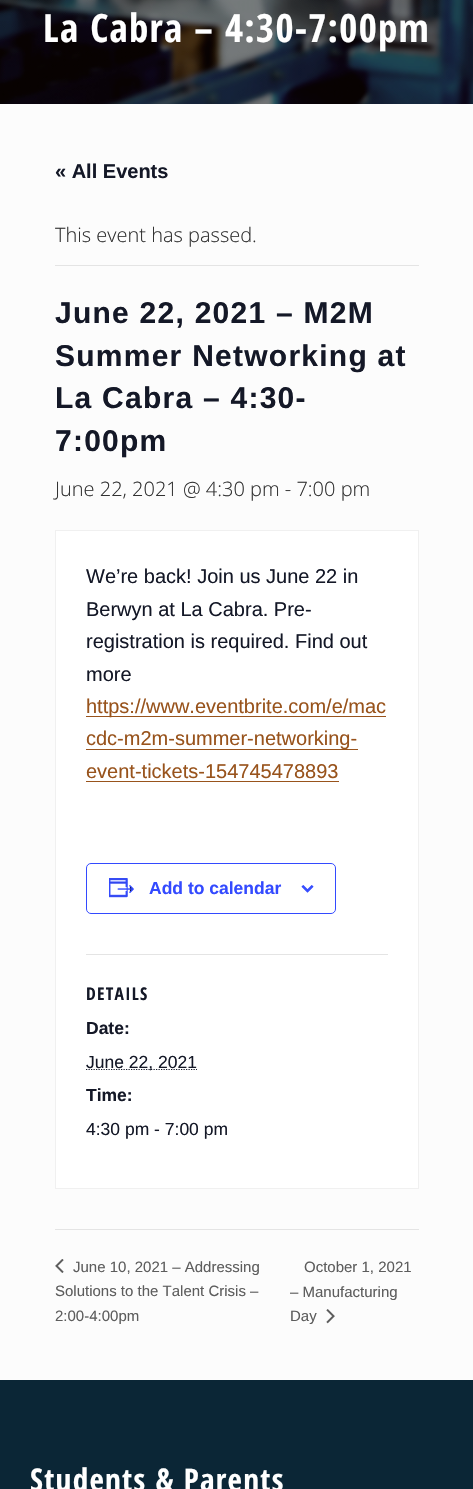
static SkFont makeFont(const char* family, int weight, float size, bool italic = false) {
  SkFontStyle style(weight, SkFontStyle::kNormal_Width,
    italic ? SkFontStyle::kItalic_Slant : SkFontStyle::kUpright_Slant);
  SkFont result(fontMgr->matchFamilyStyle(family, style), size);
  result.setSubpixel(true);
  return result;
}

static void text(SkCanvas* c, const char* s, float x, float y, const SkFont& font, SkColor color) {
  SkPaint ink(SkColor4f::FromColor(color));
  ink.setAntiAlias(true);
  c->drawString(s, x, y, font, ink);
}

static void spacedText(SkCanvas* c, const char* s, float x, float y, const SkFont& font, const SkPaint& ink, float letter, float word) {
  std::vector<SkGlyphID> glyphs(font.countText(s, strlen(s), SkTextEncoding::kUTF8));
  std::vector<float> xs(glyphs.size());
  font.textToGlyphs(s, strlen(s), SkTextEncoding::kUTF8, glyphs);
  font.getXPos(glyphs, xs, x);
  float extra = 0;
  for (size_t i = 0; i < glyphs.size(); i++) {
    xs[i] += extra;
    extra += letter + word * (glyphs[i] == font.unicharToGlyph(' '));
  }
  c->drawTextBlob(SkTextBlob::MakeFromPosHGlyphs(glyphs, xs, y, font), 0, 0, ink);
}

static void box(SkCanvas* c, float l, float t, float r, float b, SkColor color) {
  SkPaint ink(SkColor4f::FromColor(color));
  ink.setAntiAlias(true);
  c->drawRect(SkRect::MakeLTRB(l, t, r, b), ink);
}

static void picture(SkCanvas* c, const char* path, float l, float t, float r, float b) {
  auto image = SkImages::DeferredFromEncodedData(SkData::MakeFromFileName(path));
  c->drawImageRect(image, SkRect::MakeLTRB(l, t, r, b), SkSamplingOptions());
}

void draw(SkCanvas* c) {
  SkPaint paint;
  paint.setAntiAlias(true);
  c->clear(0xfffcfcfc);
  picture(c, "img_01.png", 0, 0, 473, 104);
  SkFont face1 = makeFont("Open Sans Condensed", 700, 39);
  paint.setColor(0xffffffff);
  spacedText(c, "La Cabra – 4:30-7:00pm", 43, 42, face1, paint, 1.25f, 0);
  SkFont face2 = makeFont("Liberation Sans", 700, 20);
  text(c, "« All Events", 55, 178, face2, 0xff141827);
  box(c, 55, 265, 419, 266, 0xffe4e4e4);
  SkFont face3 = makeFont("Open Sans", 300, 20);
  text(c, "This event has passed.", 55, 242, face3, 0xff323232);
  SkFont face4 = makeFont("Liberation Sans", 700, 30);
  paint.setColor(0xff141827);
  spacedText(c, "June 22, 2021 – M2M", 55, 323, face4, paint, 1.25f, 0);
  spacedText(c, "Summer Networking at", 55, 366, face4, paint, 1.25f, 0);
  spacedText(c, "La Cabra – 4:30-", 55, 408, face4, paint, 1.25f, 0);
  spacedText(c, "7:00pm", 55, 451, face4, paint, 1.25f, 0);
  text(c, "June 22, 2021 @ 4:30 pm - 7:00 pm", 55, 496, face3, 0xff323232);
  paint.setColor(0xffffffff);
  c->drawRect(SkRect::MakeLTRB(55.5f, 530.5f, 418.5f, 1188.5f), paint);
  paint.setStyle(SkPaint::kStroke_Style);
  paint.setStrokeWidth(1);
  paint.setColor(0xfff0f0f0);
  c->drawRect(SkRect::MakeLTRB(55.5f, 530.5f, 418.5f, 1188.5f), paint);
  SkFont face5 = makeFont("Liberation Sans", 400, 20);
  text(c, "We’re back! Join us June 22 in", 86, 583, face5, 0xff141827);
  text(c, "Berwyn at La Cabra. Pre-", 86, 616, face5, 0xff141827);
  text(c, "registration is required. Find out", 86, 648, face5, 0xff141827);
  text(c, "more", 86, 681, face5, 0xff141827);
  box(c, 86, 716, 386, 717, 0xff98531c);
  text(c, "https://www.eventbrite.com/e/mac", 86, 713, face5, 0xff98531c);
  box(c, 86, 749, 358, 750, 0xff98531c);
  text(c, "cdc-m2m-summer-networking-", 86, 745, face5, 0xff98531c);
  text(c, "event-tickets-154745478893", 86, 778, face5, 0xff98531c);
  box(c, 86, 781, 339, 782, 0xff98531c);
  paint.setColor(0xff334aff);
  c->drawRoundRect(SkRect::MakeLTRB(86.5f, 863.5f, 335.5f, 913.5f), 4.5f, 4.5f, paint);
  picture(c, "img_02.png", 109, 878, 134, 898);
  SkFont face6 = makeFont("Liberation Sans", 700, 17.5f);
  text(c, "Add to calendar", 149, 894, face6, 0xff334aff);
  picture(c, "img_03.png", 301, 885, 314, 893);
  box(c, 86, 954, 388, 955, 0xffe4e4e4);
  SkFont face7 = makeFont("Open Sans Condensed", 700, 17.5f);
  paint.setStyle(SkPaint::kFill_Style);
  paint.setColor(0xff141827);
  spacedText(c, "DETAILS", 86, 1000, face7, paint, 1.25f, 0);
  text(c, "Date:", 86, 1034, face6, 0xff141827);
  paint.setStyle(SkPaint::kStroke_Style);
  paint.setStrokeWidth(1.2f);
  paint.setPathEffect(SkDashPathEffect::Make({{1.25f, 1.25f}}, 0));
  c->drawPath(SkPathBuilder().moveTo(86, 1069.5f).lineTo(197, 1069.5f).detach(), paint);
  paint.setPathEffect(nullptr);
  SkFont face8 = makeFont("Liberation Sans", 400, 17.5f);
  text(c, "June 22, 2021", 86, 1068, face8, 0xff141827);
  text(c, "Time:", 86, 1101, face6, 0xff141827);
  text(c, "4:30 pm - 7:00 pm", 86, 1135, face8, 0xff141827);
  box(c, 55, 1229, 419, 1230, 0xffe4e4e4);
  picture(c, "img_04.png", 55, 1259, 64, 1273);
  SkFont face9 = makeFont("Liberation Sans", 400, 15);
  text(c, "June 10, 2021 – Addressing", 73, 1272, face9, 0xff5d5d5d);
  text(c, "Solutions to the Talent Crisis –", 55, 1296, face9, 0xff5d5d5d);
  text(c, "2:00-4:00pm", 55, 1321, face9, 0xff5d5d5d);
  text(c, "October 1, 2021", 304, 1272, face9, 0xff5d5d5d);
  text(c, "– Manufacturing", 290, 1297, face9, 0xff5d5d5d);
  text(c, "Day", 290, 1321, face9, 0xff5d5d5d);
  picture(c, "img_05.png", 326, 1309, 335, 1324);
  box(c, 0, 1380, 473, 1489, 0xff0b2636);
  SkFont face10 = makeFont("Open Sans Condensed", 700, 31.25f);
  paint.setStyle(SkPaint::kFill_Style);
  paint.setColor(0xffffffff);
  spacedText(c, "Students & Parents", 30, 1491, face10, paint, 1.25f, 0);
}
